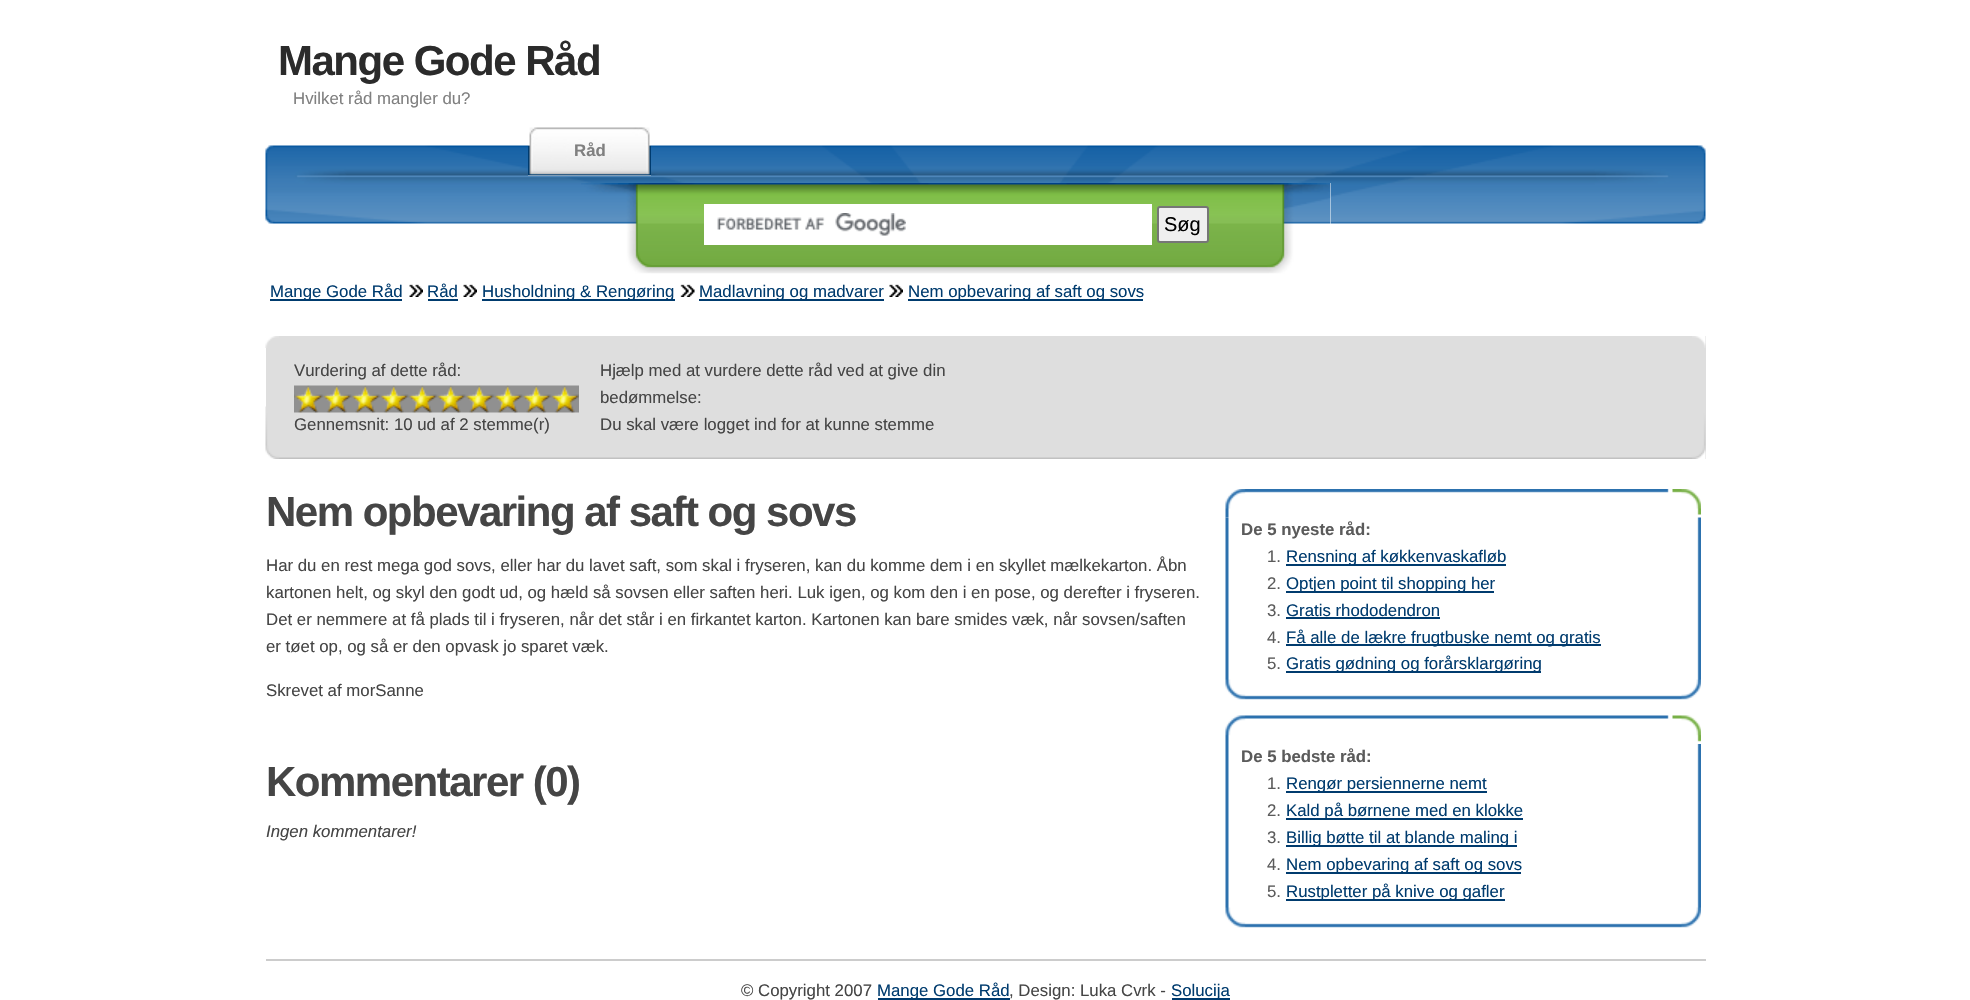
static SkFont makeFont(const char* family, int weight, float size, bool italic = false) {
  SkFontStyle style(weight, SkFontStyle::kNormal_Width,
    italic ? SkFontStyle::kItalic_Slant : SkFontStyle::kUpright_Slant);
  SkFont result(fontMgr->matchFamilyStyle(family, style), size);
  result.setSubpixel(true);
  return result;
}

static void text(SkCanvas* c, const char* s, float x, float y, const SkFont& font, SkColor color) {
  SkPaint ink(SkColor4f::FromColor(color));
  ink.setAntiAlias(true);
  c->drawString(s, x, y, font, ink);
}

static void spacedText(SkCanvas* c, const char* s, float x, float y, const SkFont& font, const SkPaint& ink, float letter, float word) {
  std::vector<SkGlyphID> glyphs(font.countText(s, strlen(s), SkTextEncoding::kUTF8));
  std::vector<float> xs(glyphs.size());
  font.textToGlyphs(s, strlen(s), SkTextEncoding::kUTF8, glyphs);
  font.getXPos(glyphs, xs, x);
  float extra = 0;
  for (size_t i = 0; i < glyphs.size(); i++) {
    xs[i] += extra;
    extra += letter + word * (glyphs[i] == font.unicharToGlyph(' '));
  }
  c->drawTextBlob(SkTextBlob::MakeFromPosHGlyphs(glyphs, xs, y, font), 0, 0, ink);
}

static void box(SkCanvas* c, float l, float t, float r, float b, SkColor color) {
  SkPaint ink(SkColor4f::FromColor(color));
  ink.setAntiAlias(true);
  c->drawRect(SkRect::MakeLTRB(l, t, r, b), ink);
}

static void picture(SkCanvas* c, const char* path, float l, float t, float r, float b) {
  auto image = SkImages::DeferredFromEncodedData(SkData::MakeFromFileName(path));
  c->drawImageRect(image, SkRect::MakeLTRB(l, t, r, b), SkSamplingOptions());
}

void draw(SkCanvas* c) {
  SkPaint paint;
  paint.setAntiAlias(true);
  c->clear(0xffffffff);
  SkFont face1 = makeFont("Liberation Sans", 700, 42);
  paint.setColor(0xff2b2b2b);
  spacedText(c, "Mange Gode Råd", 278, 75, face1, paint, -1.5f, 0);
  SkFont face2 = makeFont("Liberation Sans", 400, 16.8f);
  text(c, "Hvilket råd mangler du?", 293, 104, face2, 0xff808080);
  picture(c, "img_01.png", 265, 145, 1706, 224);
  box(c, 528, 175, 651, 176, 0xffffffff);
  picture(c, "img_02.png", 528, 127, 651, 176);
  SkFont face3 = makeFont("Liberation Sans", 700, 16.8f);
  text(c, "Råd", 574, 156, face3, 0xff808080);
  box(c, 270, 299, 402, 301, 0xff003b6e);
  text(c, "Mange Gode Råd", 270, 297, face2, 0xff003b6e);
  picture(c, "img_03.png", 409, 284, 423, 297);
  text(c, "Råd", 427, 297, face2, 0xff003b6e);
  box(c, 428, 299, 458, 301, 0xff003b6e);
  picture(c, "img_03.png", 463, 284, 477, 297);
  box(c, 482, 299, 675, 301, 0xff003b6e);
  text(c, "Husholdning & Rengøring", 482, 297, face2, 0xff003b6e);
  picture(c, "img_04.png", 680, 284, 695, 297);
  box(c, 699, 299, 884, 301, 0xff003b6e);
  text(c, "Madlavning og madvarer", 699, 297, face2, 0xff003b6e);
  picture(c, "img_05.png", 889, 284, 903, 297);
  box(c, 908, 299, 1143, 301, 0xff003b6e);
  text(c, "Nem opbevaring af saft og sovs", 908, 297, face2, 0xff003b6e);
  box(c, 1705, 336, 1706, 348, 0xffdedede);
  picture(c, "img_06.png", 265, 336, 1706, 348);
  box(c, 266, 348, 1706, 459, 0xffdedede);
  picture(c, "img_07.png", 265, 406, 1706, 459);
  text(c, "Vurdering af dette råd:", 294, 376, face2, 0xff454545);
  picture(c, "img_08.png", 294, 385, 579, 413);
  text(c, "Gennemsnit: 10 ud af 2 stemme(r)", 294, 430, face2, 0xff454545);
  text(c, "Hjælp med at vurdere dette råd ved at give din", 600, 376, face2, 0xff454545);
  text(c, "bedømmelse:", 600, 403, face2, 0xff454545);
  text(c, "Du skal være logget ind for at kunne stemme", 600, 430, face2, 0xff454545);
  paint.setColor(0xff454545);
  spacedText(c, "Nem opbevaring af saft og sovs", 266, 526, face1, paint, -1.5f, 0);
  text(c, "Har du en rest mega god sovs, eller har du lavet saft, som skal i fryseren, kan du komme dem i en skyllet mælkekarton. Åbn", 266, 571, face2, 0xff454545);
  text(c, "kartonen helt, og skyl den godt ud, og hæld så sovsen eller saften heri. Luk igen, og kom den i en pose, og derefter i fryseren.", 266, 598, face2, 0xff454545);
  text(c, "Det er nemmere at få plads til i fryseren, når det står i en firkantet karton. Kartonen kan bare smides væk, når sovsen/saften", 266, 625, face2, 0xff454545);
  text(c, "er tøet op, og så er den opvask jo sparet væk.", 266, 652, face2, 0xff454545);
  text(c, "Skrevet af morSanne", 266, 696, face2, 0xff454545);
  spacedText(c, "Kommentarer (0)", 266, 796, face1, paint, -1.5f, 0);
  SkFont face4 = makeFont("Liberation Sans", 400, 16.8f, true);
  text(c, "Ingen kommentarer!", 266, 837, face4, 0xff454545);
  picture(c, "img_09.png", 1225, 489, 1701, 518);
  picture(c, "img_10.png", 1225, 517, 1701, 700);
  text(c, "De 5 nyeste råd:", 1241, 535, face3, 0xff5b5b5b);
  text(c, "1.", 1267, 562, face2, 0xff5b5b5b);
  box(c, 1286, 564, 1506, 566, 0xff003b6e);
  text(c, "Rensning af køkkenvaskafløb", 1286, 562, face2, 0xff003b6e);
  text(c, "2.", 1267, 589, face2, 0xff5b5b5b);
  box(c, 1286, 591, 1494, 593, 0xff003b6e);
  text(c, "Optjen point til shopping her", 1286, 589, face2, 0xff003b6e);
  text(c, "3.", 1267, 616, face2, 0xff5b5b5b);
  text(c, "Gratis rhododendron", 1286, 616, face2, 0xff003b6e);
  box(c, 1286, 617, 1440, 619, 0xff003b6e);
  text(c, "4.", 1267, 643, face2, 0xff5b5b5b);
  box(c, 1286, 644, 1601, 646, 0xff003b6e);
  text(c, "Få alle de lækre frugtbuske nemt og gratis", 1286, 643, face2, 0xff003b6e);
  text(c, "5.", 1267, 669, face2, 0xff5b5b5b);
  box(c, 1286, 671, 1541, 673, 0xff003b6e);
  text(c, "Gratis gødning og forårsklargøring", 1286, 669, face2, 0xff003b6e);
  picture(c, "img_11.png", 1225, 715, 1701, 744);
  picture(c, "img_12.png", 1225, 744, 1701, 928);
  text(c, "De 5 bedste råd:", 1241, 762, face3, 0xff5b5b5b);
  text(c, "1.", 1267, 789, face2, 0xff5b5b5b);
  box(c, 1286, 791, 1487, 793, 0xff003b6e);
  text(c, "Rengør persiennerne nemt", 1286, 789, face2, 0xff003b6e);
  text(c, "2.", 1267, 816, face2, 0xff5b5b5b);
  box(c, 1286, 818, 1523, 820, 0xff003b6e);
  text(c, "Kald på børnene med en klokke", 1286, 816, face2, 0xff003b6e);
  text(c, "3.", 1267, 843, face2, 0xff5b5b5b);
  box(c, 1286, 845, 1517, 847, 0xff003b6e);
  text(c, "Billig bøtte til at blande maling i", 1286, 843, face2, 0xff003b6e);
  text(c, "4.", 1267, 870, face2, 0xff5b5b5b);
  box(c, 1286, 872, 1521, 874, 0xff003b6e);
  text(c, "Nem opbevaring af saft og sovs", 1286, 870, face2, 0xff003b6e);
  text(c, "5.", 1267, 897, face2, 0xff5b5b5b);
  box(c, 1286, 899, 1505, 901, 0xff003b6e);
  text(c, "Rustpletter på knive og gafler", 1286, 897, face2, 0xff003b6e);
  box(c, 266, 959, 1706, 961, 0xffcccccc);
  text(c, "© Copyright 2007", 741, 996, face2, 0xff454545);
  box(c, 878, 998, 1010, 1000, 0xff003b6e);
  text(c, "Mange Gode Råd", 877, 996, face2, 0xff003b6e);
  text(c, ", Design: Luka Cvrk -", 1009, 996, face2, 0xff454545);
  box(c, 1172, 998, 1230, 1000, 0xff003b6e);
  text(c, "Solucija", 1171, 996, face2, 0xff003b6e);
  box(c, 581, 183, 1331, 224, 0xffffffff);
  picture(c, "img_13.png", 581, 183, 1331, 274);
  box(c, 704, 204, 1152, 245, 0xffffffff);
  picture(c, "img_14.png", 717, 213, 906, 236);
  paint.setColor(0xffefefef);
  c->drawRoundRect(SkRect::MakeLTRB(1158, 207, 1208, 242), 2, 2, paint);
  paint.setStyle(SkPaint::kStroke_Style);
  paint.setStrokeWidth(2);
  paint.setColor(0xff767676);
  c->drawRoundRect(SkRect::MakeLTRB(1158, 207, 1208, 242), 2, 2, paint);
  SkFont face5 = makeFont("Liberation Sans", 400, 20);
  text(c, "Søg", 1164, 231, face5, 0xff000000);
}
